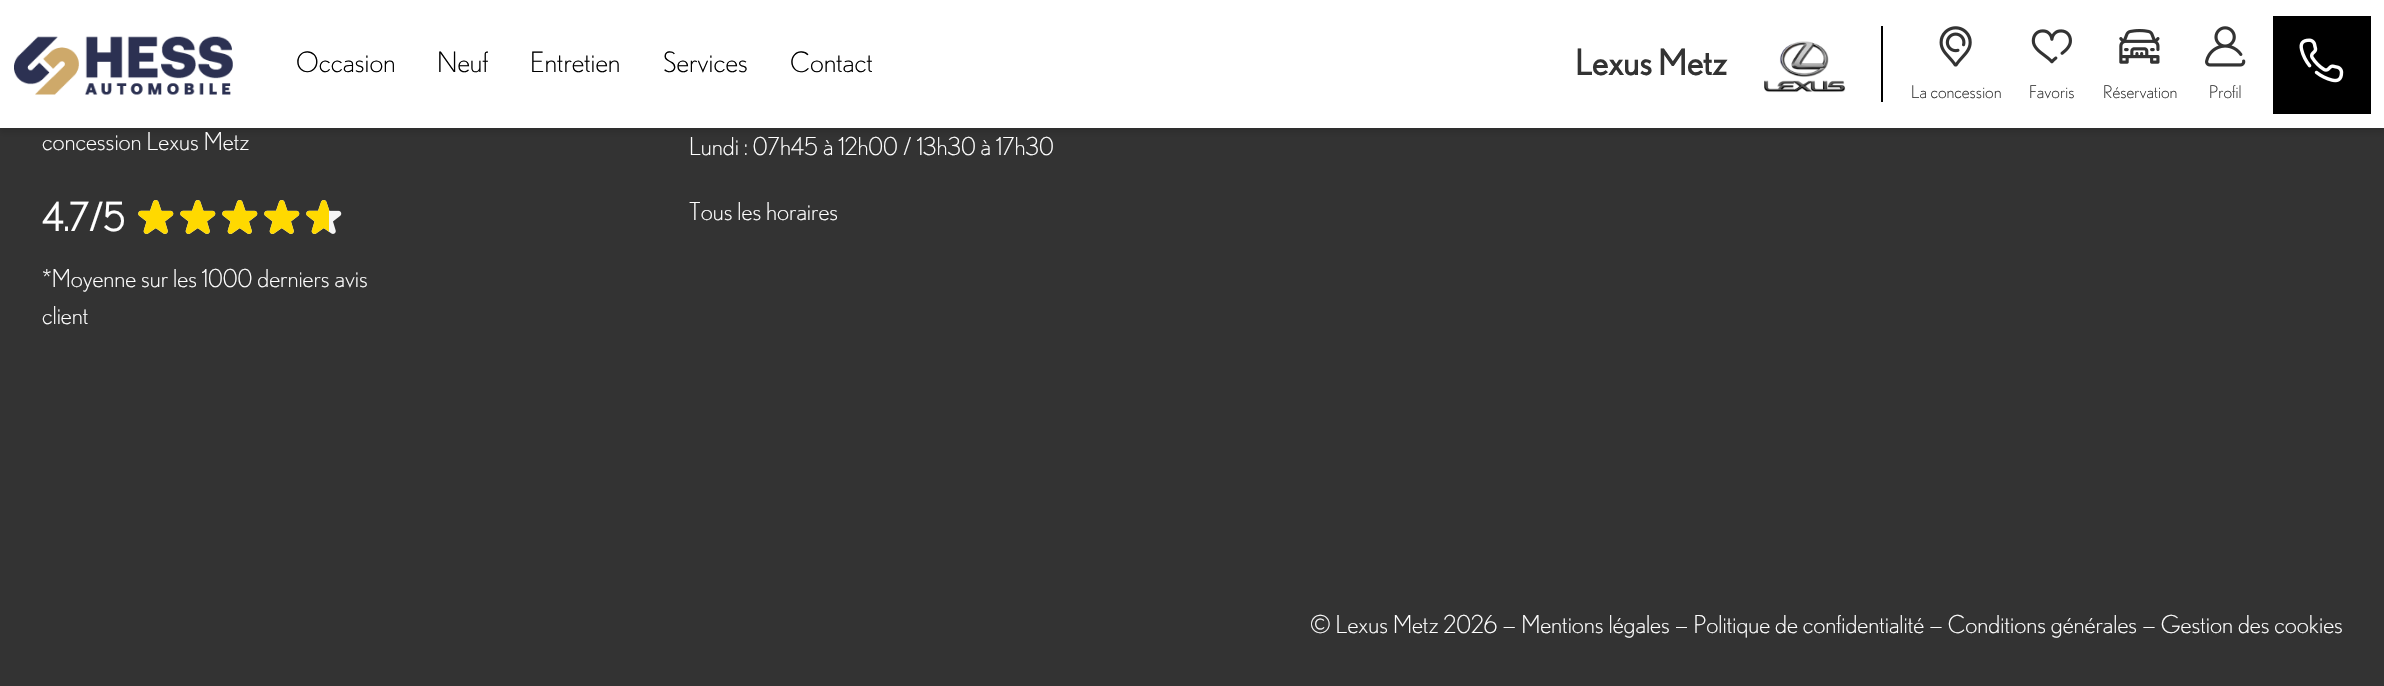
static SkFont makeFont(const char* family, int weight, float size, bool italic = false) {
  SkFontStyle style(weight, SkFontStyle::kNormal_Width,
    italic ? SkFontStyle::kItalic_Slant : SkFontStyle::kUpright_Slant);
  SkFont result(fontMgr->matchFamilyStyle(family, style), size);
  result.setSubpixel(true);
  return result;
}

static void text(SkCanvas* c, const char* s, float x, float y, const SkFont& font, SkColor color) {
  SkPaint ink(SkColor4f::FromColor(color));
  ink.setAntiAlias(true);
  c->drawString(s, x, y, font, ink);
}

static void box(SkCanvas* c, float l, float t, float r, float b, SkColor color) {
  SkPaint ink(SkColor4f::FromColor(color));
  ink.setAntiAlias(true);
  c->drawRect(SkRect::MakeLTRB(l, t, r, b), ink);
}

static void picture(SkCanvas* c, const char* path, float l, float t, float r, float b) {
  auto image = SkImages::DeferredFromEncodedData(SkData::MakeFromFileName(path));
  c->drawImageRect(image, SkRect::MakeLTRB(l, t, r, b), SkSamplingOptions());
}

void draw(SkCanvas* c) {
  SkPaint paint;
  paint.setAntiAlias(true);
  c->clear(0xff333333);
  paint.setColor(0x1a000000);
  paint.setMaskFilter(SkMaskFilter::MakeBlur(kNormal_SkBlurStyle, 2.5f));
  c->drawRect(SkRect::MakeLTRB(0, 5, 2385, 133), paint);
  paint.setMaskFilter(nullptr);
  box(c, 0, 0, 2384, 128, 0xffffffff);
  picture(c, "img_01.png", 14, 36, 233, 95);
  SkFont face1 = makeFont("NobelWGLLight", 300, 28);
  text(c, "Occasion", 296, 72, face1, 0xff000000);
  text(c, "Neuf", 437, 72, face1, 0xff000000);
  text(c, "Entretien", 530, 72, face1, 0xff000000);
  text(c, "Services", 663, 72, face1, 0xff000000);
  text(c, "Contact", 790, 72, face1, 0xff000000);
  SkFont face2 = makeFont("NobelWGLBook", 700, 35);
  text(c, "Lexus Metz", 1575, 75, face2, 0xff333333);
  picture(c, "img_02.png", 1764, 41, 1846, 93);
  box(c, 1881, 26, 1883, 102, 0xff000000);
  picture(c, "img_03.png", 1939, 26, 1972, 67);
  SkFont face3 = makeFont("NobelWGLLight", 300, 17.5f);
  text(c, "La concession", 1911, 98, face3, 0xff333333);
  picture(c, "img_04.png", 2031, 29, 2072, 64);
  text(c, "Favoris", 2029, 98, face3, 0xff333333);
  picture(c, "img_05.png", 2119, 29, 2160, 64);
  text(c, "Réservation", 2103, 98, face3, 0xff333333);
  picture(c, "img_06.png", 2205, 26, 2246, 67);
  text(c, "Profil", 2209, 98, face3, 0xff333333);
  box(c, 2273, 16, 2371, 114, 0xff000000);
  picture(c, "img_07.png", 2299, 38, 2344, 83);
  SkFont face4 = makeFont("NobelWGLLight", 300, 24.5f);
  text(c, "concession Lexus Metz", 42, 150, face4, 0xffffffff);
  SkFont face5 = makeFont("NobelWGLLight", 700, 38.5f);
  text(c, "4.7/5", 42, 231, face5, 0xffffffff);
  picture(c, "img_08.png", 138, 200, 174, 234);
  picture(c, "img_09.png", 138, 200, 174, 234);
  picture(c, "img_08.png", 180, 200, 216, 234);
  picture(c, "img_09.png", 180, 200, 216, 234);
  picture(c, "img_08.png", 222, 200, 258, 234);
  picture(c, "img_09.png", 222, 200, 258, 234);
  picture(c, "img_08.png", 264, 200, 300, 234);
  picture(c, "img_09.png", 264, 200, 300, 234);
  picture(c, "img_08.png", 306, 200, 342, 234);
  picture(c, "img_10.png", 306, 200, 329, 234);
  text(c, "*Moyenne sur les 1000 derniers avis", 42, 287, face4, 0xffffffff);
  text(c, "client", 42, 324, face4, 0xffffffff);
  text(c, "Lundi : 07h45 à 12h00 / 13h30 à 17h30", 689, 155, face4, 0xffffffff);
  text(c, "Tous les horaires", 689, 220, face4, 0xffffffff);
  text(c, "© Lexus Metz 2026 — Mentions légales — Politique de confidentialité — Conditions générales — Gestion des cookies", 1310, 633, face4, 0xffffffff);
}
